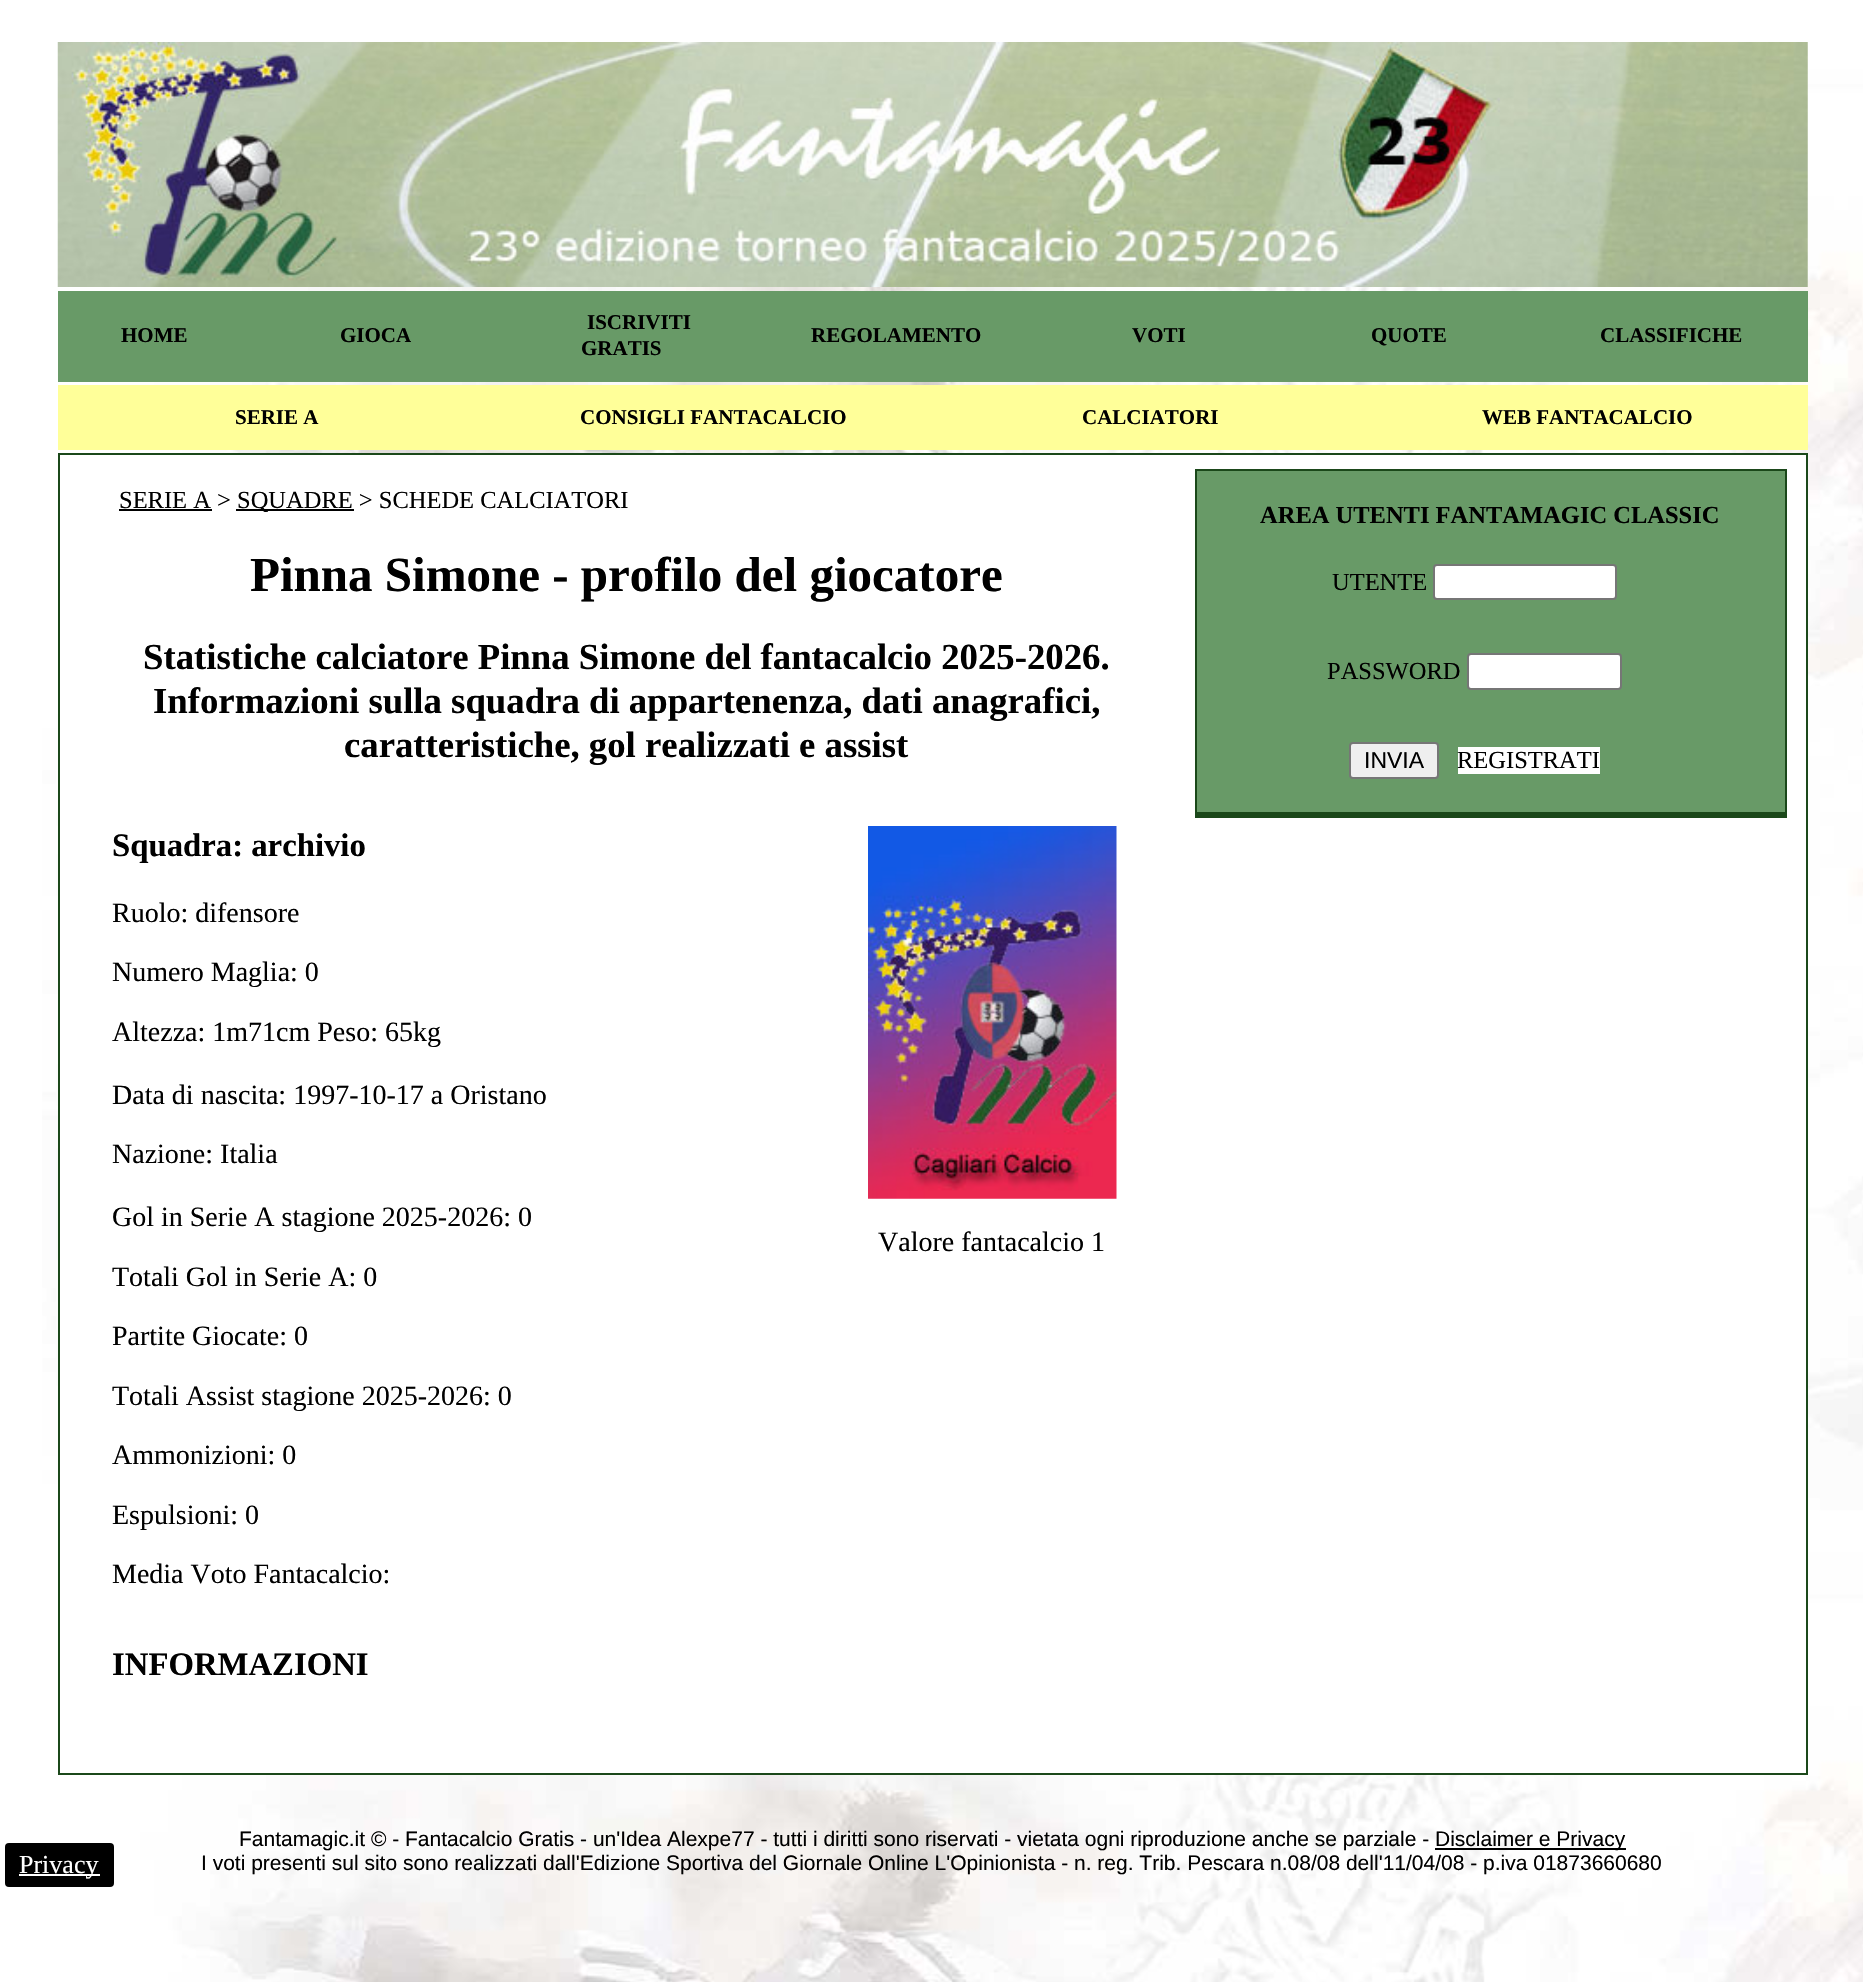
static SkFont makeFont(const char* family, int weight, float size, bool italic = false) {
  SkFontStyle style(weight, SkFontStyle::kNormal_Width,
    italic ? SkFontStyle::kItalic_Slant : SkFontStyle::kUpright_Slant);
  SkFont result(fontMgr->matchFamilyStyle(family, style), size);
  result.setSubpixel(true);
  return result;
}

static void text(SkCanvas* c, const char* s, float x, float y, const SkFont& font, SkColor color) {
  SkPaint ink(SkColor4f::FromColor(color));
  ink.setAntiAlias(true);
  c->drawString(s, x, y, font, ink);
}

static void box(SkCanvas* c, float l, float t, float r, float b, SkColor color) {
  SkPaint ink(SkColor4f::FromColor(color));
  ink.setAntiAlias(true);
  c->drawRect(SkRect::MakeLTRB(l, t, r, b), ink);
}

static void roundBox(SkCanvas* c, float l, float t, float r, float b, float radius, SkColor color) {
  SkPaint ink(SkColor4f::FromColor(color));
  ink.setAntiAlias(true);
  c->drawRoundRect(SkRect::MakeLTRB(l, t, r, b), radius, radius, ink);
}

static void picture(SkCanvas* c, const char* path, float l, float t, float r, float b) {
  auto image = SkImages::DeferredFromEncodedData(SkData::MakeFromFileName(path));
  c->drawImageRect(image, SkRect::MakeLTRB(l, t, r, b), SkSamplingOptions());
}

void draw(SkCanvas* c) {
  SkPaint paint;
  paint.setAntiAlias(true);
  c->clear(0xffffffff);
  picture(c, "img_01.png", 42, 69, 1863, 1982);
  roundBox(c, 5, 1843, 114, 1887, 4, 0xff000000);
  box(c, 19, 1874, 100, 1876, 0xffffffff);
  SkFont face1 = makeFont("Liberation Serif", 400, 26);
  text(c, "Privacy", 19, 1873, face1, 0xffffffff);
  picture(c, "img_02.png", 57, 42, 1808, 287);
  box(c, 58, 291, 1808, 382, 0xff689a67);
  SkFont face2 = makeFont("Liberation Serif", 700, 21);
  text(c, "HOME", 121, 342, face2, 0xff000000);
  text(c, "GIOCA", 340, 342, face2, 0xff000000);
  text(c, "ISCRIVITI", 587, 329, face2, 0xff000000);
  text(c, "GRATIS", 581, 355, face2, 0xff000000);
  text(c, "REGOLAMENTO", 811, 342, face2, 0xff000000);
  text(c, "VOTI", 1132, 342, face2, 0xff000000);
  text(c, "QUOTE", 1371, 342, face2, 0xff000000);
  text(c, "CLASSIFICHE", 1600, 342, face2, 0xff000000);
  box(c, 58, 385, 1808, 450, 0xffffff99);
  text(c, "SERIE A", 235, 424, face2, 0xff000000);
  text(c, "CONSIGLI FANTACALCIO", 580, 424, face2, 0xff000000);
  text(c, "CALCIATORI", 1082, 424, face2, 0xff000000);
  text(c, "WEB FANTACALCIO", 1482, 424, face2, 0xff000000);
  paint.setColor(0xffffffff);
  c->drawRect(SkRect::MakeLTRB(59, 454, 1807, 1774), paint);
  paint.setStyle(SkPaint::kStroke_Style);
  paint.setStrokeWidth(2);
  paint.setColor(0xff1b481a);
  c->drawRect(SkRect::MakeLTRB(59, 454, 1807, 1774), paint);
  SkFont face3 = makeFont("Liberation Serif", 400, 24.5f);
  text(c, "SERIE A >", 119, 508, face3, 0xff000000);
  box(c, 119, 509, 212, 511, 0xff000000);
  box(c, 236, 509, 354, 511, 0xff000000);
  text(c, "SQUADRE > SCHEDE CALCIATORI", 237, 508, face3, 0xff000000);
  SkFont face4 = makeFont("Liberation Serif", 700, 49);
  text(c, "Pinna Simone - profilo del giocatore", 250, 591, face4, 0xff000000);
  SkFont face5 = makeFont("Liberation Serif", 700, 36.75f);
  text(c, "Statistiche calciatore Pinna Simone del fantacalcio 2025-2026.", 143, 669, face5, 0xff000000);
  text(c, "Informazioni sulla squadra di appartenenza, dati anagrafici,", 153, 713, face5, 0xff000000);
  text(c, "caratteristiche, gol realizzati e assist", 344, 757, face5, 0xff000000);
  SkFont face6 = makeFont("Liberation Serif", 700, 32.75f);
  text(c, "Squadra: archivio", 112, 856, face6, 0xff000000);
  SkFont face7 = makeFont("Liberation Serif", 400, 28);
  text(c, "Ruolo: difensore", 112, 922, face7, 0xff000000);
  text(c, "Numero Maglia: 0", 112, 981, face7, 0xff000000);
  text(c, "Altezza: 1m71cm Peso: 65kg", 112, 1041, face7, 0xff000000);
  text(c, "Data di nascita: 1997-10-17 a Oristano", 112, 1104, face7, 0xff000000);
  text(c, "Nazione: Italia", 112, 1163, face7, 0xff000000);
  text(c, "Gol in Serie A stagione 2025-2026: 0", 112, 1226, face7, 0xff000000);
  text(c, "Totali Gol in Serie A: 0", 112, 1286, face7, 0xff000000);
  text(c, "Partite Giocate: 0", 112, 1345, face7, 0xff000000);
  text(c, "Totali Assist stagione 2025-2026: 0", 112, 1405, face7, 0xff000000);
  text(c, "Ammonizioni: 0", 112, 1464, face7, 0xff000000);
  text(c, "Espulsioni: 0", 112, 1524, face7, 0xff000000);
  text(c, "Media Voto Fantacalcio:", 112, 1583, face7, 0xff000000);
  picture(c, "img_03.png", 868, 826, 1117, 1199);
  text(c, "Valore fantacalcio 1", 878, 1251, face7, 0xff000000);
  text(c, "INFORMAZIONI", 112, 1675, face6, 0xff000000);
  paint.setStyle(SkPaint::kFill_Style);
  paint.setColor(0xff689a67);
  c->drawRect(SkRect::MakeLTRB(1196, 470, 1786, 813), paint);
  paint.setStyle(SkPaint::kStroke_Style);
  paint.setColor(0xff1b481a);
  c->drawRect(SkRect::MakeLTRB(1196, 470, 1786, 813), paint);
  SkFont face8 = makeFont("Liberation Serif", 700, 24.5f);
  text(c, "AREA UTENTI FANTAMAGIC CLASSIC", 1260, 523, face8, 0xff000000);
  text(c, "UTENTE", 1332, 590, face3, 0xff000000);
  paint.setStyle(SkPaint::kFill_Style);
  paint.setColor(0xffffffff);
  c->drawRoundRect(SkRect::MakeLTRB(1434, 565, 1616, 599), 3, 3, paint);
  paint.setStyle(SkPaint::kStroke_Style);
  paint.setColor(0xff767676);
  c->drawRoundRect(SkRect::MakeLTRB(1434, 565, 1616, 599), 3, 3, paint);
  text(c, "PASSWORD", 1327, 679, face3, 0xff000000);
  paint.setStyle(SkPaint::kFill_Style);
  paint.setColor(0xffffffff);
  c->drawRoundRect(SkRect::MakeLTRB(1468, 654, 1621, 689), 3, 3, paint);
  paint.setStyle(SkPaint::kStroke_Style);
  paint.setColor(0xff767676);
  c->drawRoundRect(SkRect::MakeLTRB(1468, 654, 1621, 689), 3, 3, paint);
  paint.setStyle(SkPaint::kFill_Style);
  paint.setColor(0xffefefef);
  c->drawRoundRect(SkRect::MakeLTRB(1350, 743, 1438, 778), 3, 3, paint);
  paint.setStyle(SkPaint::kStroke_Style);
  paint.setColor(0xff767676);
  c->drawRoundRect(SkRect::MakeLTRB(1350, 743, 1438, 778), 3, 3, paint);
  SkFont face9 = makeFont("Liberation Sans", 400, 23);
  text(c, "INVIA", 1364, 768, face9, 0xff000000);
  box(c, 1458, 747, 1600, 774, 0xffffffff);
  text(c, "REGISTRATI", 1457, 768, face3, 0xff000000);
  box(c, 1195, 814, 1787, 818, 0xff1b481a);
  SkFont face10 = makeFont("Liberation Sans", 400, 21);
  text(c, "Fantamagic.it © - Fantacalcio Gratis - un'Idea Alexpe77 - tutti i diritti sono riservati - vietata ogni riproduzione anche se parziale -", 239, 1846, face10, 0xff000000);
  box(c, 1435, 1848, 1626, 1850, 0xff000000);
  text(c, "Disclaimer e Privacy", 1435, 1846, face10, 0xff000000);
  text(c, "I voti presenti sul sito sono realizzati dall'Edizione Sportiva del Giornale Online L'Opinionista - n. reg. Trib. Pescara n.08/08 dell'11/04/08 - p.iva 01873660680", 201, 1870, face10, 0xff000000);
}
